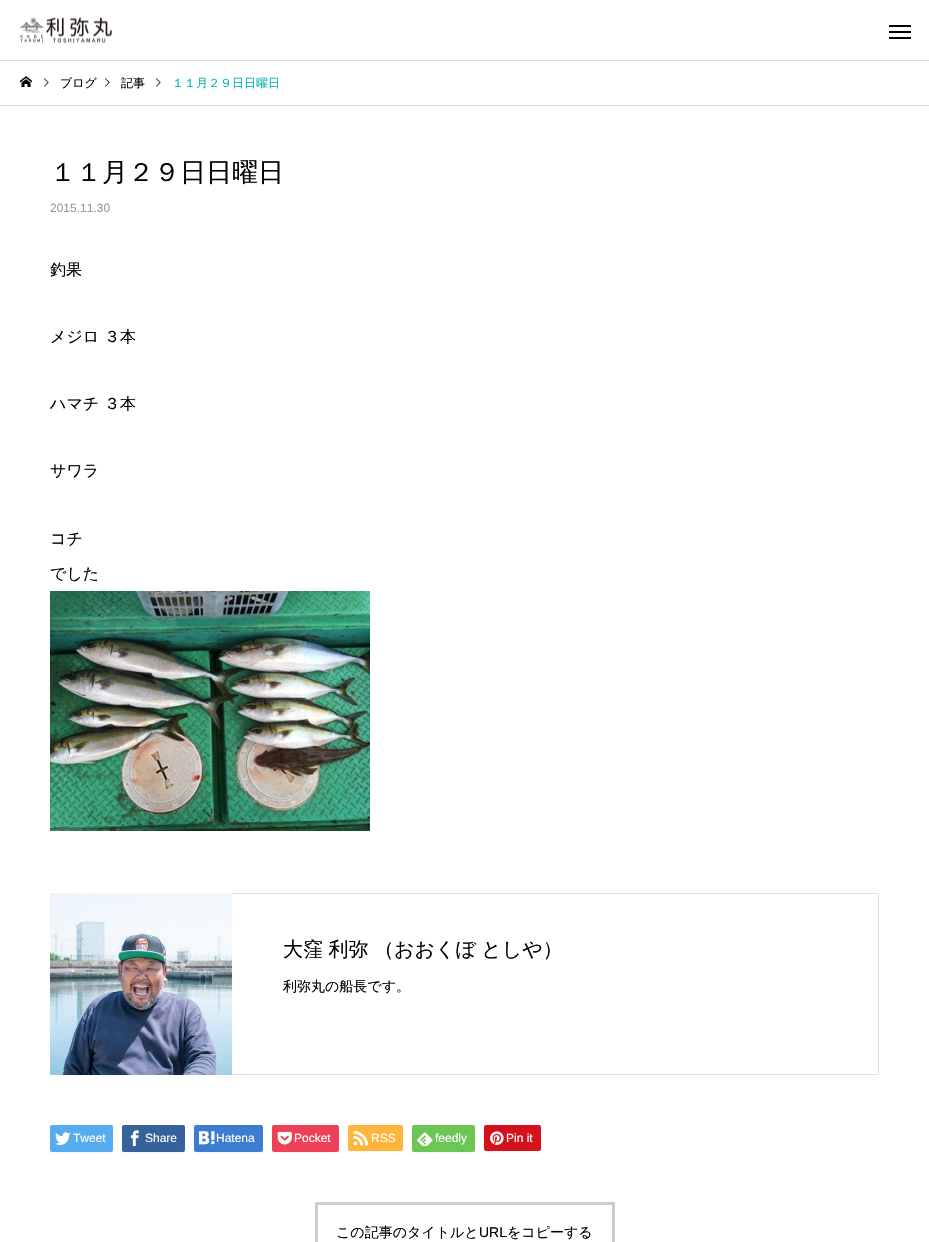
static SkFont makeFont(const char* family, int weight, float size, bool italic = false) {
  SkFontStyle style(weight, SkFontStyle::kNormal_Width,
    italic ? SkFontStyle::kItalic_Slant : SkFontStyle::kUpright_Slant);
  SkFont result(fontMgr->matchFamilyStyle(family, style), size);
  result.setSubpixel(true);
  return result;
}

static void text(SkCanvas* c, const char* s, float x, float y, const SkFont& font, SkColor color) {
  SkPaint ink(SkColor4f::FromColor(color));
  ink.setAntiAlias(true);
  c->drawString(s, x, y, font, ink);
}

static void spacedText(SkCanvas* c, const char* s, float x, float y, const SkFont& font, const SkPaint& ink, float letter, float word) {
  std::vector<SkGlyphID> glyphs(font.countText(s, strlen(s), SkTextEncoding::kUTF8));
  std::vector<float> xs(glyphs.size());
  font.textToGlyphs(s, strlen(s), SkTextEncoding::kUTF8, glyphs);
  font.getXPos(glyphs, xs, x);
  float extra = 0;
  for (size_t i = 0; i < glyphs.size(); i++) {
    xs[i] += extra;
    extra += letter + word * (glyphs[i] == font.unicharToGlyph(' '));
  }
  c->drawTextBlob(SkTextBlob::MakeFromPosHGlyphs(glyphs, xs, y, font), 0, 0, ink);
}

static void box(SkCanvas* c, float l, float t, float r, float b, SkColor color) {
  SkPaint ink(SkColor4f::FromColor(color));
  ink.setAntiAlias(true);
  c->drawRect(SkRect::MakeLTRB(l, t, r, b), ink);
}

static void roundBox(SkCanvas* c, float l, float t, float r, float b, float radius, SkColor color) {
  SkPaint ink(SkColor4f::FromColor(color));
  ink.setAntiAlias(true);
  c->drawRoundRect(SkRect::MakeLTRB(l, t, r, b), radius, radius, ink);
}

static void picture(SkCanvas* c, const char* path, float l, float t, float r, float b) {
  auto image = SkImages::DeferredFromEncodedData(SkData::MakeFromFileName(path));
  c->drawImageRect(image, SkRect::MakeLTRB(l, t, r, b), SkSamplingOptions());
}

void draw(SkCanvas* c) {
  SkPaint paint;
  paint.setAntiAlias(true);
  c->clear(0xffffffff);
  picture(c, "img_01.png", 20, 17, 112, 43);
  box(c, 889, 25, 911, 27, 0xff000000);
  box(c, 889, 31, 911, 33, 0xff000000);
  box(c, 889, 37, 911, 39, 0xff000000);
  box(c, 0, 60, 929, 61, 0xffdddddd);
  box(c, 0, 105, 929, 106, 0xffdddddd);
  picture(c, "img_02.png", 20, 76, 32, 87);
  picture(c, "img_03.png", 44, 78, 49, 87);
  SkFont face1 = makeFont("WenQuanYi Zen Hei", 500, 12);
  text(c, "ブログ", 60, 87, face1, 0xff000000);
  picture(c, "img_03.png", 105, 78, 110, 87);
  text(c, "記事", 121, 87, face1, 0xff000000);
  picture(c, "img_03.png", 156, 78, 161, 87);
  text(c, "１１月２９日日曜日", 172, 87, face1, 0xff00b5af);
  SkFont face2 = makeFont("WenQuanYi Zen Hei", 500, 26);
  text(c, "１１月２９日日曜日", 50, 181, face2, 0xff000000);
  SkFont face3 = makeFont("Liberation Sans", 400, 12);
  text(c, "2015.11.30", 50, 212, face3, 0xff999999);
  SkFont face4 = makeFont("WenQuanYi Zen Hei", 500, 16);
  text(c, "釣果", 50, 275, face4, 0xff000000);
  text(c, "メジロ", 50, 342, face4, 0xff000000);
  text(c, "３本", 104, 342, face4, 0xff000000);
  text(c, "ハマチ", 50, 409, face4, 0xff000000);
  text(c, "３本", 104, 409, face4, 0xff000000);
  text(c, "サワラ", 50, 476, face4, 0xff000000);
  text(c, "コチ", 50, 544, face4, 0xff000000);
  text(c, "でした", 50, 579, face4, 0xff000000);
  picture(c, "img_04.png", 50, 591, 370, 831);
  paint.setStyle(SkPaint::kStroke_Style);
  paint.setStrokeWidth(1);
  paint.setColor(0xffdddddd);
  c->drawRect(SkRect::MakeLTRB(50.5f, 893.5f, 878.5f, 1074.5f), paint);
  picture(c, "img_05.png", 50, 893, 232, 1075);
  SkFont face5 = makeFont("WenQuanYi Zen Hei", 500, 20);
  paint.setStyle(SkPaint::kFill_Style);
  paint.setColor(0xff000000);
  spacedText(c, "大窪 利弥 （おおくぼ としや）", 283, 956, face5, paint, 0, -0.5f);
  SkFont face6 = makeFont("WenQuanYi Zen Hei", 500, 14);
  text(c, "利弥丸の船長です。", 283, 991, face6, 0xff000000);
  paint.setColor(0xfff7f7f7);
  c->drawPath(SkPathBuilder().moveTo(50, 1150).cubicTo(50, 1156, 58, 1153, 62, 1153).lineTo(101, 1153).cubicTo(105, 1153, 113, 1156, 113, 1150).lineTo(112, 1152).lineTo(62, 1152).cubicTo(58, 1152, 50, 1154, 50, 1150).close().detach(), paint);
  roundBox(c, 50, 1125, 113, 1152, 2, 0xff55acee);
  picture(c, "img_06.png", 55, 1132, 71, 1145);
  text(c, "Tweet", 73, 1142, face3, 0xffffffff);
  c->drawPath(SkPathBuilder().moveTo(122, 1150).cubicTo(122, 1156, 130, 1153, 134, 1153).lineTo(173, 1153).cubicTo(177, 1153, 185, 1156, 185, 1150).lineTo(184, 1152).lineTo(134, 1152).cubicTo(130, 1152, 122, 1154, 122, 1150).close().detach(), paint);
  roundBox(c, 122, 1125, 185, 1152, 2, 0xff35629a);
  picture(c, "img_07.png", 130, 1130, 139, 1146);
  text(c, "Share", 145, 1142, face3, 0xffffffff);
  c->drawPath(SkPathBuilder().moveTo(194, 1150).cubicTo(194, 1156, 203, 1153, 207, 1153).lineTo(250, 1153).cubicTo(254, 1153, 263, 1156, 263, 1150).cubicTo(263, 1151, 262, 1152, 261, 1152).lineTo(195, 1152).close().detach(), paint);
  roundBox(c, 194, 1125, 263, 1152, 2, 0xff3c7dd1);
  picture(c, "img_08.png", 199, 1131, 215, 1145);
  text(c, "Hatena", 216, 1142, face3, 0xffffffff);
  c->drawPath(SkPathBuilder().moveTo(272, 1150).cubicTo(272, 1156, 281, 1153, 284, 1153).lineTo(326, 1153).cubicTo(330, 1153, 339, 1156, 339, 1150).lineTo(338, 1152).lineTo(274, 1152).lineTo(272, 1151).close().detach(), paint);
  roundBox(c, 272, 1125, 339, 1152, 2, 0xffee4056);
  picture(c, "img_09.png", 277, 1131, 292, 1145);
  text(c, "Pocket", 294, 1142, face3, 0xffffffff);
  c->drawPath(SkPathBuilder().moveTo(348, 1149).cubicTo(348, 1154, 355, 1152, 358, 1152).lineTo(392, 1152).cubicTo(396, 1152, 403, 1154, 403, 1149).lineTo(402, 1151).lineTo(349, 1151).close().detach(), paint);
  roundBox(c, 348, 1125, 403, 1151, 2, 0xffffb53c);
  picture(c, "img_10.png", 353, 1130, 369, 1146);
  text(c, "RSS", 371, 1142, face3, 0xffffffff);
  c->drawPath(SkPathBuilder().moveTo(412, 1150).cubicTo(412, 1156, 420, 1153, 424, 1153).lineTo(463, 1153).cubicTo(467, 1153, 475, 1156, 475, 1150).lineTo(474, 1152).lineTo(424, 1152).cubicTo(420, 1152, 412, 1154, 412, 1150).close().detach(), paint);
  roundBox(c, 412, 1125, 475, 1152, 2, 0xff6cc655);
  picture(c, "img_11.png", 417, 1132, 433, 1146);
  text(c, "feedly", 435, 1142, face3, 0xffffffff);
  c->drawPath(SkPathBuilder().moveTo(484, 1149).cubicTo(484, 1154, 491, 1152, 495, 1152).lineTo(530, 1152).cubicTo(534, 1152, 541, 1154, 541, 1149).cubicTo(541, 1153, 534, 1151, 530, 1151).lineTo(485, 1151).close().detach(), paint);
  roundBox(c, 484, 1125, 541, 1151, 2, 0xffd4121c);
  picture(c, "img_12.png", 490, 1131, 504, 1145);
  text(c, "Pin it", 506, 1142, face3, 0xffffffff);
  paint.setStyle(SkPaint::kStroke_Style);
  paint.setStrokeWidth(3);
  paint.setColor(0xffcccccc);
  c->drawRect(SkRect::MakeLTRB(316.5f, 1203.5f, 613.5f, 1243.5f), paint);
  text(c, "この記事のタイトルと", 336, 1237, face6, 0xff000000);
  SkFont face7 = makeFont("Liberation Sans", 400, 14);
  text(c, "URL", 479, 1237, face7, 0xff000000);
  text(c, "をコピーする", 507, 1237, face6, 0xff000000);
}
